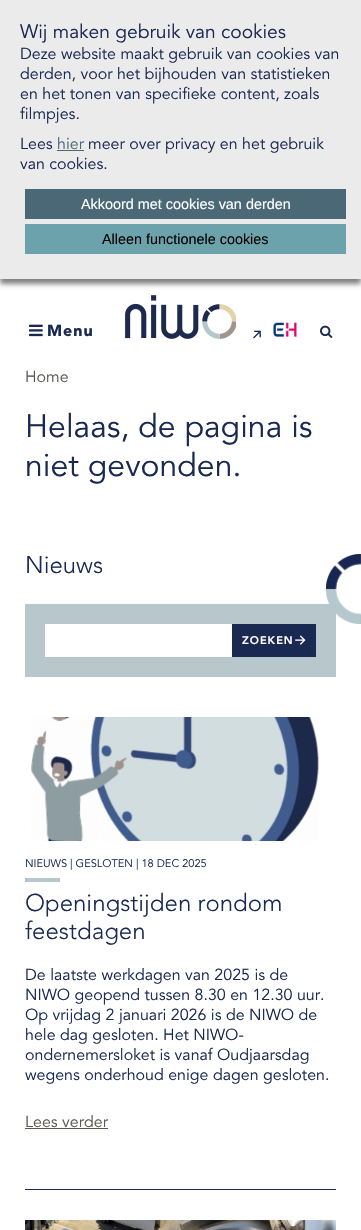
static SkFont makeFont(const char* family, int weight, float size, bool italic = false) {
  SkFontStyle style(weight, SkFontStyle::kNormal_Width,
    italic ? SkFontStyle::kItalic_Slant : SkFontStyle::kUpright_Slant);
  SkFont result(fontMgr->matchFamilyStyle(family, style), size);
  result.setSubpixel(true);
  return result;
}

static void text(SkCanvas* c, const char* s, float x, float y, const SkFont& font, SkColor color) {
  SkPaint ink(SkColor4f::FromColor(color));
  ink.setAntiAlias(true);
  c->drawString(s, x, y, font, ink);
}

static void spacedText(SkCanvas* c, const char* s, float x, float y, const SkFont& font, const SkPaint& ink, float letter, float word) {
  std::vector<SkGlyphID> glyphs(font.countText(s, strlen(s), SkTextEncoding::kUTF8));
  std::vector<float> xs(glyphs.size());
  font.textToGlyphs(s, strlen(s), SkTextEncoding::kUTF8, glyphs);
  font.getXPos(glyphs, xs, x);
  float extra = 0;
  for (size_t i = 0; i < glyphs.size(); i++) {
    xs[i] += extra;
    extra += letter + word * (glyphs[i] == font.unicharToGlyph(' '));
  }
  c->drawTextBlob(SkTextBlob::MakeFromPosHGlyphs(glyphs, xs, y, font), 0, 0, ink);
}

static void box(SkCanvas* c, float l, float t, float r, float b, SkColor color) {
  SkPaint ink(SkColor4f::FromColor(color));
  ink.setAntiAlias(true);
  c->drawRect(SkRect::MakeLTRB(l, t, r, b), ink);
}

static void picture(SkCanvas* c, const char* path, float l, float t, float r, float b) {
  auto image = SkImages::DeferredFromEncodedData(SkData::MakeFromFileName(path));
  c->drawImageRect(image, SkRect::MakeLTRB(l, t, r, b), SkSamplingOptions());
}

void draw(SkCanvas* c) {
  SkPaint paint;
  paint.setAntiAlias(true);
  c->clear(0xffffffff);
  paint.setColor(0x80000000);
  paint.setMaskFilter(SkMaskFilter::MakeBlur(kNormal_SkBlurStyle, 2.5f));
  c->drawRect(SkRect::MakeLTRB(0, 5, 361, 284), paint);
  paint.setMaskFilter(nullptr);
  box(c, 0, 0, 361, 279, 0xffecebeb);
  SkFont face1 = makeFont("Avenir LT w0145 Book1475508", 400, 19.25f);
  text(c, "Wij maken gebruik van cookies", 20, 38, face1, 0xff192952);
  SkFont face2 = makeFont("Avenir LT w0145 Book1475508", 400, 16);
  text(c, "Deze website maakt gebruik van cookies van", 20, 59, face2, 0xff192952);
  text(c, "derden, voor het bijhouden van statistieken", 20, 79, face2, 0xff192952);
  text(c, "en het tonen van specifieke content, zoals", 20, 99, face2, 0xff192952);
  text(c, "filmpjes.", 20, 119, face2, 0xff192952);
  text(c, "Lees", 20, 149, face2, 0xff192952);
  text(c, "hier", 57, 149, face2, 0xff4a6876);
  box(c, 57, 150, 84, 151, 0xff4a6876);
  text(c, "meer over privacy en het gebruik", 88, 149, face2, 0xff192952);
  text(c, "van cookies.", 20, 169, face2, 0xff192952);
  box(c, 25, 189, 346, 219, 0xff4a6876);
  SkFont face3 = makeFont("Liberation Sans", 400, 14.4f);
  text(c, "Akkoord met cookies van derden", 81, 209, face3, 0xffffffff);
  box(c, 25, 224, 346, 254, 0xff6ca2ab);
  text(c, "Alleen functionele cookies", 102, 244, face3, 0xff000000);
  picture(c, "img_01.png", 29, 324, 43, 337);
  SkFont face4 = makeFont("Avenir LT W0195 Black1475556", 900, 16);
  paint.setColor(0xff192952);
  spacedText(c, "Menu", 47, 336, face4, paint, 1, 0);
  picture(c, "img_02.png", 125, 295, 236, 339);
  picture(c, "img_03.png", 253, 330, 261, 339);
  picture(c, "img_04.png", 273, 322, 297, 337);
  picture(c, "img_05.png", 320, 325, 333, 338);
  text(c, "Home", 25, 382, face2, 0xff5d5751);
  SkFont face5 = makeFont("Avenir LT w0145 Book1475508", 400, 32);
  text(c, "Helaas, de pagina is", 25, 437, face5, 0xff192952);
  text(c, "niet gevonden.", 25, 476, face5, 0xff192952);
  SkFont face6 = makeFont("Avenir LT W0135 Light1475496", 300, 24);
  text(c, "Nieuws", 25, 573, face6, 0xff192952);
  picture(c, "img_06.png", 326, 554, 361, 589);
  box(c, 25, 604, 336, 677, 0xffb8c7cb);
  picture(c, "img_07.png", 326, 589, 361, 624);
  box(c, 45, 624, 232, 657, 0xffffffff);
  box(c, 232, 624, 316, 657, 0xff192952);
  SkFont face7 = makeFont("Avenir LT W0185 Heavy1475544", 900, 11);
  paint.setColor(0xffffffff);
  spacedText(c, "ZOEKEN", 242, 644, face7, paint, 1, 0);
  picture(c, "img_08.png", 295, 635, 306, 645);
  box(c, 25, 1189, 336, 1190, 0xff192952);
  picture(c, "img_09.png", 31, 717, 319, 841);
  SkFont face8 = makeFont("Avenir LT w0145 Book1475508", 400, 11);
  text(c, "NIEUWS | GESLOTEN | 18 DEC 2025", 25, 867, face8, 0xff192952);
  box(c, 25, 878, 60, 882, 0xffb8c7cb);
  text(c, "Openingstijden rondom", 25, 911, face6, 0xff192952);
  text(c, "feestdagen", 25, 939, face6, 0xff192952);
  text(c, "De laatste werkdagen van 2025 is de", 25, 980, face2, 0xff192952);
  text(c, "NIWO geopend tussen 8.30 en 12.30 uur.", 25, 1000, face2, 0xff192952);
  text(c, "Op vrijdag 2 januari 2026 is de NIWO de", 25, 1020, face2, 0xff192952);
  text(c, "hele dag gesloten. Het NIWO-", 25, 1040, face2, 0xff192952);
  text(c, "ondernemersloket is vanaf Oudjaarsdag", 25, 1060, face2, 0xff192952);
  text(c, "wegens onderhoud enige dagen gesloten.", 25, 1080, face2, 0xff192952);
  text(c, "Lees verder", 25, 1127, face2, 0xff5d5751);
  box(c, 25, 1128, 108, 1129, 0xff5d5751);
  picture(c, "img_10.png", 25, 1220, 336, 1230);
}
